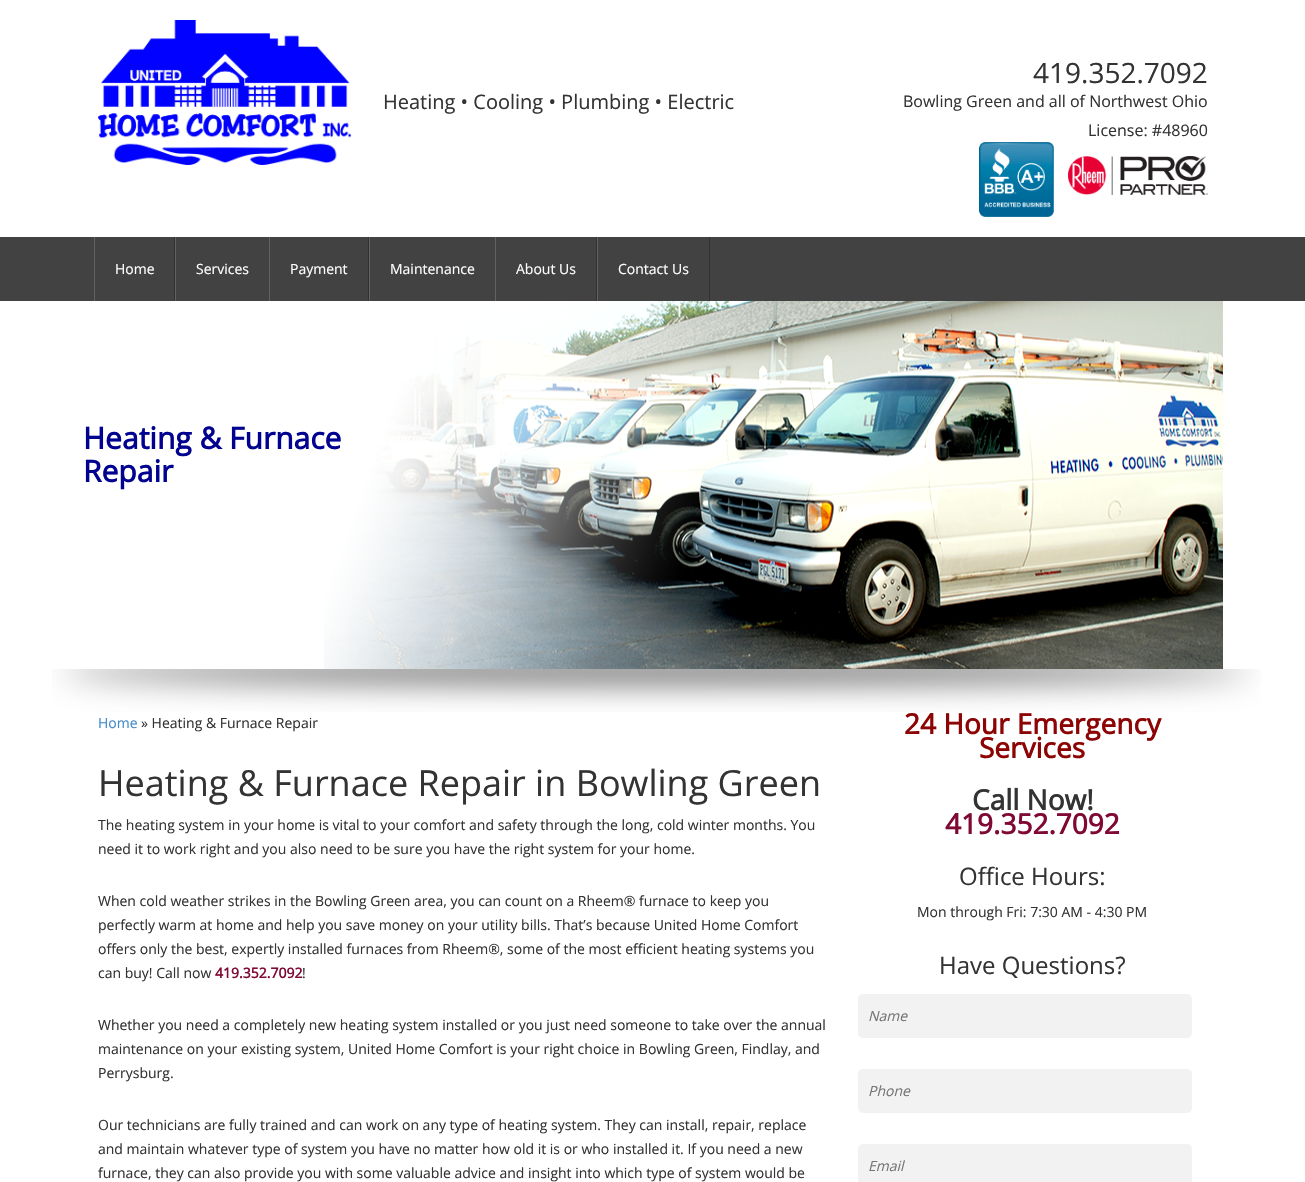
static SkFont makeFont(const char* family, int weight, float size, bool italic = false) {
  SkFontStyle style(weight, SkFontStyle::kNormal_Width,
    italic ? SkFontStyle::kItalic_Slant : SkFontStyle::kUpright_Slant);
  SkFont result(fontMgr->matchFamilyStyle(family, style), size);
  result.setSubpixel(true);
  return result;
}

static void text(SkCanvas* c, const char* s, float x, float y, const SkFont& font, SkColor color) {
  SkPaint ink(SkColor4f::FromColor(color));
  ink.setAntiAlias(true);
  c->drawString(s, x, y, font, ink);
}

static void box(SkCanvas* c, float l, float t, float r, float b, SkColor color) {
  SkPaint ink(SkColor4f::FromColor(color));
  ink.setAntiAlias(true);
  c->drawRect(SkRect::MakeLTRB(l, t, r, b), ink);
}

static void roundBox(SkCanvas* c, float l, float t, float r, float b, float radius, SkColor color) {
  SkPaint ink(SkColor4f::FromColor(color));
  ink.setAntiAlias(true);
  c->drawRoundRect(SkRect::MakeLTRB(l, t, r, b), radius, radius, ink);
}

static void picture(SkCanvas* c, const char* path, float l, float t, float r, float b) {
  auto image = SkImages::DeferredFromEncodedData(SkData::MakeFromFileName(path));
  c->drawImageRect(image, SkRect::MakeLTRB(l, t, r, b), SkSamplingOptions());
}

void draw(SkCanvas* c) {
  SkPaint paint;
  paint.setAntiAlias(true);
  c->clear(0xffffffff);
  picture(c, "img_01.png", 98, 20, 352, 165);
  SkFont face1 = makeFont("Open Sans", 400, 20);
  text(c, "Heating • Cooling • Plumbing • Electric", 383, 109, face1, 0xff333333);
  SkFont face2 = makeFont("Open Sans", 400, 28);
  text(c, "419.352.7092", 1033, 83, face2, 0xff333333);
  SkFont face3 = makeFont("Open Sans", 400, 16);
  text(c, "Bowling Green and all of Northwest Ohio", 903, 107, face3, 0xff333333);
  text(c, "License: #48960", 1088, 136, face3, 0xff333333);
  picture(c, "img_02.png", 979, 142, 1054, 217);
  picture(c, "img_03.png", 1068, 156, 1208, 195);
  box(c, 0, 237, 1305, 301, 0xff424242);
  box(c, 174, 237, 175, 301, 0xff323232);
  box(c, 94, 237, 95, 301, 0xff626262);
  SkFont face4 = makeFont("Open Sans", 400, 14);
  text(c, "Home", 115, 274, face4, 0xffffffff);
  box(c, 175, 237, 176, 301, 0xff626262);
  text(c, "Services", 196, 274, face4, 0xffffffff);
  box(c, 368, 237, 369, 301, 0xff323232);
  box(c, 269, 237, 270, 301, 0xff626262);
  text(c, "Payment", 290, 274, face4, 0xffffffff);
  box(c, 369, 237, 370, 301, 0xff626262);
  text(c, "Maintenance", 390, 274, face4, 0xffffffff);
  box(c, 596, 237, 597, 301, 0xff323232);
  box(c, 495, 237, 496, 301, 0xff626262);
  text(c, "About Us", 516, 274, face4, 0xffffffff);
  box(c, 709, 237, 710, 301, 0xff323232);
  box(c, 597, 237, 598, 301, 0xff626262);
  text(c, "Contact Us", 618, 274, face4, 0xffffffff);
  picture(c, "img_04.png", 52, 669, 1261, 712);
  picture(c, "img_05.png", 324, 301, 1223, 669);
  SkFont face5 = makeFont("Open Sans", 700, 30);
  text(c, "Heating & Furnace", 83, 449, face5, 0xff020291);
  text(c, "Repair", 83, 482, face5, 0xff020291);
  text(c, "Home", 98, 728, face4, 0xff428bca);
  text(c, "» Heating & Furnace Repair", 141, 728, face4, 0xff333333);
  SkFont face6 = makeFont("Open Sans", 400, 36);
  text(c, "Heating & Furnace Repair in Bowling Green", 98, 796, face6, 0xff333333);
  text(c, "The heating system in your home is vital to your comfort and safety through the long, cold winter months. You", 98, 830, face4, 0xff333333);
  text(c, "need it to work right and you also need to be sure you have the right system for your home.", 98, 854, face4, 0xff333333);
  text(c, "When cold weather strikes in the Bowling Green area, you can count on a Rheem® furnace to keep you", 98, 906, face4, 0xff333333);
  text(c, "perfectly warm at home and help you save money on your utility bills. That’s because United Home Comfort", 98, 930, face4, 0xff333333);
  text(c, "offers only the best, expertly installed furnaces from Rheem®, some of the most efficient heating systems you", 98, 954, face4, 0xff333333);
  text(c, "can buy! Call now", 98, 978, face4, 0xff333333);
  SkFont face7 = makeFont("Open Sans", 700, 14);
  text(c, "419.352.7092", 215, 978, face7, 0xff800834);
  text(c, "!", 302, 978, face4, 0xff333333);
  text(c, "Whether you need a completely new heating system installed or you just need someone to take over the annual", 98, 1030, face4, 0xff333333);
  text(c, "maintenance on your existing system, United Home Comfort is your right choice in Bowling Green, Findlay, and", 98, 1054, face4, 0xff333333);
  text(c, "Perrysburg.", 98, 1078, face4, 0xff333333);
  text(c, "Our technicians are fully trained and can work on any type of heating system. They can install, repair, replace", 98, 1130, face4, 0xff333333);
  text(c, "and maintain whatever type of system you have no matter how old it is or who installed it. If you need a new", 98, 1154, face4, 0xff333333);
  text(c, "furnace, they can also provide you with some valuable advice and insight into which type of system would be", 98, 1178, face4, 0xff333333);
  SkFont face8 = makeFont("Open Sans", 700, 28);
  text(c, "24 Hour Emergency", 904, 734, face8, 0xff8d0404);
  text(c, "Services", 979, 758, face8, 0xff8d0404);
  text(c, "Call Now!", 972, 810, face8, 0xff333333);
  text(c, "419.352.7092", 945, 834, face8, 0xff800834);
  SkFont face9 = makeFont("Open Sans", 400, 24);
  text(c, "Office Hours:", 959, 885, face9, 0xff333333);
  text(c, "Mon through Fri: 7:30 AM - 4:30 PM", 917, 917, face4, 0xff333333);
  text(c, "Have Questions?", 939, 974, face9, 0xff333333);
  roundBox(c, 858, 994, 1192, 1038, 5, 0xfff2f2f2);
  SkFont face10 = makeFont("Open Sans", 400, 14, true);
  text(c, "Name", 868, 1021, face10, 0xff757575);
  roundBox(c, 858, 1069, 1192, 1113, 5, 0xfff2f2f2);
  text(c, "Phone", 868, 1096, face10, 0xff757575);
  roundBox(c, 858, 1144, 1192, 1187, 5, 0xfff2f2f2);
  text(c, "Email", 868, 1171, face10, 0xff757575);
}
